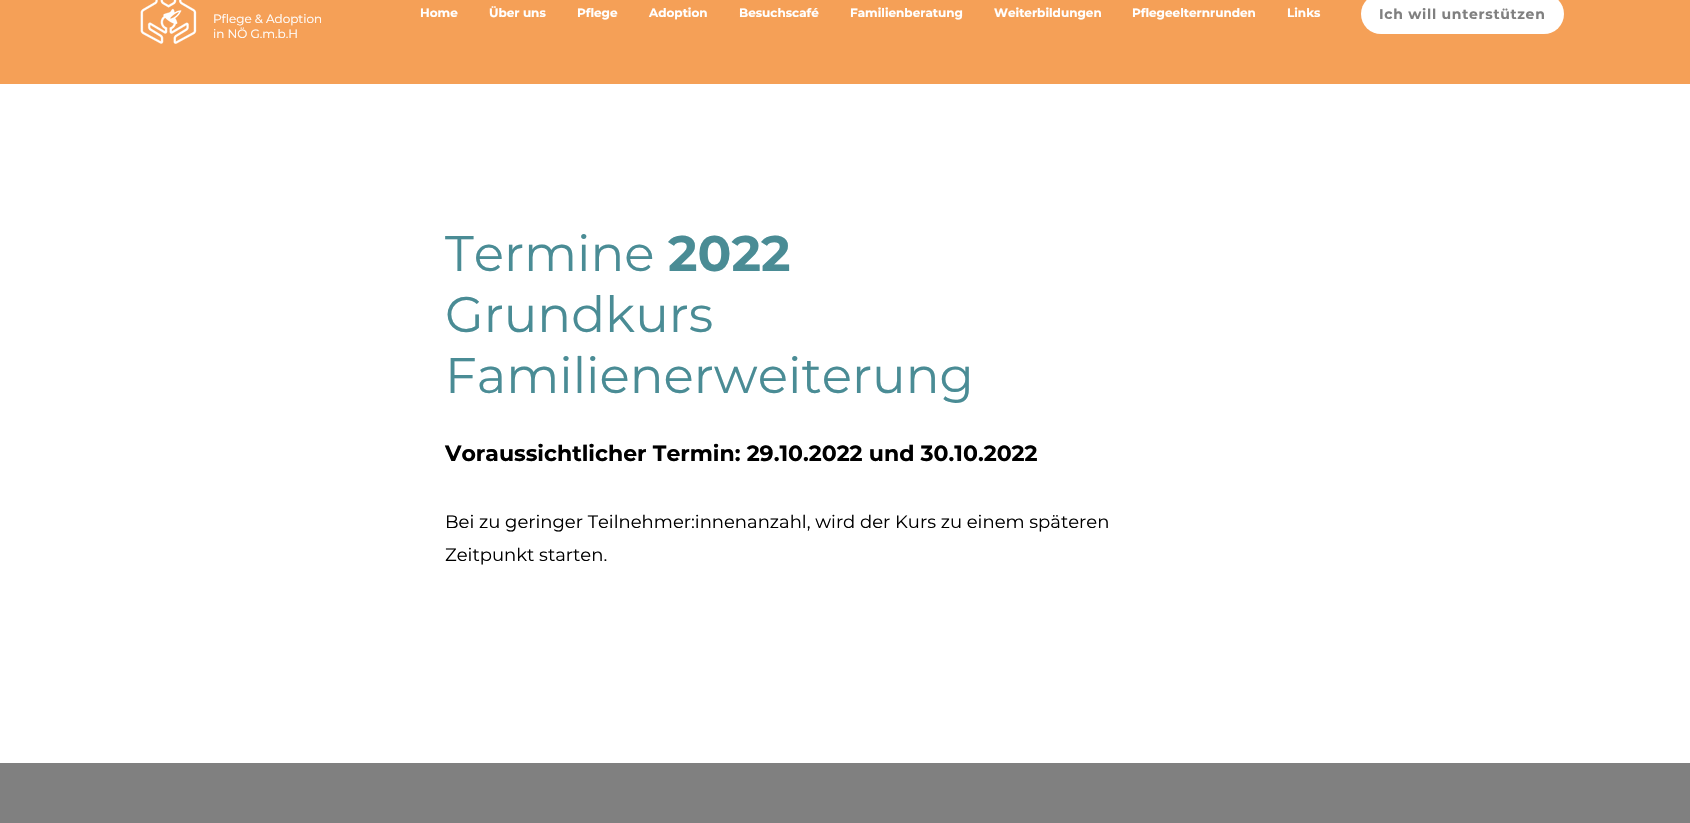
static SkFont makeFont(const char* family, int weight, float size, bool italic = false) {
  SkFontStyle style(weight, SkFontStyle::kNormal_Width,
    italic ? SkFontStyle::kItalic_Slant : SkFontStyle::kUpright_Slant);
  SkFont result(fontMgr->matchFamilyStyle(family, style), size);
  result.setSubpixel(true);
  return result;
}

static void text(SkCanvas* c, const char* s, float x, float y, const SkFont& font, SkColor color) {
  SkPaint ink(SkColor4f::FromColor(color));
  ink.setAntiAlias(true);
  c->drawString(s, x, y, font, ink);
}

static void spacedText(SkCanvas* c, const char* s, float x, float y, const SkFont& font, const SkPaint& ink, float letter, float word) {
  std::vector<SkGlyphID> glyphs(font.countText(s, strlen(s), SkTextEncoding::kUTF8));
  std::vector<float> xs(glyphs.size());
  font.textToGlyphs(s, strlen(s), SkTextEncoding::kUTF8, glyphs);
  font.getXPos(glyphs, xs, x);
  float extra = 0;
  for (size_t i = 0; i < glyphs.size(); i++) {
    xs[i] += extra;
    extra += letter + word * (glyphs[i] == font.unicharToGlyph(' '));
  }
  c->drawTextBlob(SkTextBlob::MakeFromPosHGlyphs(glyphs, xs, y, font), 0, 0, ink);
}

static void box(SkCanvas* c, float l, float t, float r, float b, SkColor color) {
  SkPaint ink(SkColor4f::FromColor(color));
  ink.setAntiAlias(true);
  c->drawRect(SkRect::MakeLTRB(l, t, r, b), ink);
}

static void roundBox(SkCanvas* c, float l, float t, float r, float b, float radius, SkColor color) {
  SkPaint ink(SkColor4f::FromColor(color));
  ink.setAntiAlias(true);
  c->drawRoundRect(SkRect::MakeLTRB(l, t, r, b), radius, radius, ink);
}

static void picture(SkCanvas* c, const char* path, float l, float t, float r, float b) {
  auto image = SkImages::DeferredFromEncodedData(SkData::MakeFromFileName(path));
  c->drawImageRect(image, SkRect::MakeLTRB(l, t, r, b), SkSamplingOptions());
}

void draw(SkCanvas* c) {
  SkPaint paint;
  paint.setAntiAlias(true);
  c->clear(0xffffffff);
  box(c, 0, 0, 1690, 84, 0xfff5a057);
  picture(c, "img_01.png", 140, 0, 197, 44);
  SkFont face1 = makeFont("Montserrat", 400, 12);
  text(c, "Pflege & Adoption", 213, 23, face1, 0xffffffff);
  text(c, "in NÖ G.m.b.H", 213, 38, face1, 0xffffffff);
  SkFont face2 = makeFont("Montserrat", 700, 12);
  text(c, "Home", 420, 17, face2, 0xffffffff);
  text(c, "Über uns", 489, 17, face2, 0xffffffff);
  text(c, "Pflege", 577, 17, face2, 0xffffffff);
  text(c, "Adoption", 649, 17, face2, 0xffffffff);
  text(c, "Besuchscafé", 739, 17, face2, 0xffffffff);
  text(c, "Familienberatung", 850, 17, face2, 0xffffffff);
  text(c, "Weiterbildungen", 994, 17, face2, 0xffffffff);
  text(c, "Pflegeelternrunden", 1132, 17, face2, 0xffffffff);
  text(c, "Links", 1287, 17, face2, 0xffffffff);
  roundBox(c, 1361, -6, 1564, 34, 20, 0xffffffff);
  SkFont face3 = makeFont("Montserrat", 700, 14);
  paint.setColor(0xff808080);
  spacedText(c, "Ich will unterstützen", 1379, 19, face3, paint, 0.7f, 0);
  SkFont face4 = makeFont("Montserrat", 400, 50);
  text(c, "Termine", 445, 271, face4, 0xff4a8c95);
  SkFont face5 = makeFont("Montserrat", 700, 50);
  text(c, "2022", 668, 271, face5, 0xff4a8c95);
  text(c, "Grundkurs", 445, 332, face4, 0xff4a8c95);
  text(c, "Familienerweiterung", 445, 393, face4, 0xff4a8c95);
  SkFont face6 = makeFont("Montserrat", 700, 22);
  text(c, "Voraussichtlicher Termin: 29.10.2022 und 30.10.2022", 445, 461, face6, 0xff000000);
  SkFont face7 = makeFont("Montserrat", 400, 18);
  text(c, "Bei zu geringer Teilnehmer:innenanzahl, wird der Kurs zu einem späteren", 445, 528, face7, 0xff000000);
  text(c, "Zeitpunkt starten.", 445, 561, face7, 0xff000000);
  box(c, 0, 763, 1690, 823, 0xff808080);
}
